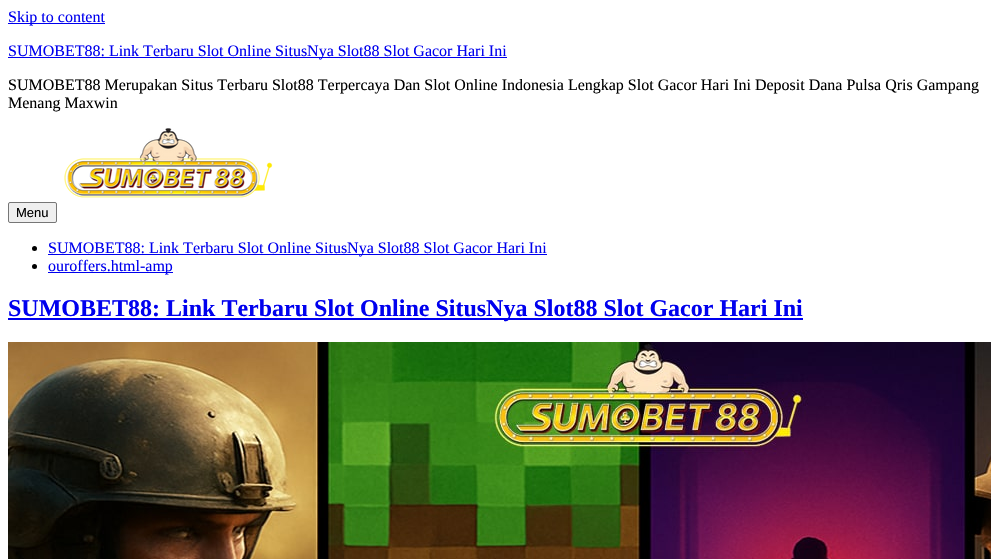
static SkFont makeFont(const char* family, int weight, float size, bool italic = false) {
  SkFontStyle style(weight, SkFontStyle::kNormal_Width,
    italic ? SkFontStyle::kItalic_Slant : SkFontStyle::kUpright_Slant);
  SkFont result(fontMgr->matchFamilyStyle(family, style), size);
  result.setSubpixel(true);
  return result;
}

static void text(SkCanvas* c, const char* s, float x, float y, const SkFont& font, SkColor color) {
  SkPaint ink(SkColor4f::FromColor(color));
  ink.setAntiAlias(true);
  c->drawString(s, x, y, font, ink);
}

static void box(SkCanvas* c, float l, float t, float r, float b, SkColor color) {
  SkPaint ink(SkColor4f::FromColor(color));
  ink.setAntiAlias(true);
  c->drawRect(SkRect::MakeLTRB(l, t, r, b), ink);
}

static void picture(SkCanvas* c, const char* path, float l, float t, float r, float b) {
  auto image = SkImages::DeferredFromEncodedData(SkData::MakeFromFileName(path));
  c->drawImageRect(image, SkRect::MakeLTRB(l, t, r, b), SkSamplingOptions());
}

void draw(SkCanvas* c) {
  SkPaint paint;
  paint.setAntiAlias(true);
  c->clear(0xffffffff);
  box(c, 8, 23, 105, 24, 0xff0000ee);
  SkFont face1 = makeFont("Liberation Serif", 400, 16);
  text(c, "Skip to content", 8, 22, face1, 0xff0000ee);
  box(c, 8, 57, 507, 58, 0xff0000ee);
  text(c, "SUMOBET88: Link Terbaru Slot Online SitusNya Slot88 Slot Gacor Hari Ini", 8, 56, face1, 0xff0000ee);
  text(c, "SUMOBET88 Merupakan Situs Terbaru Slot88 Terpercaya Dan Slot Online Indonesia Lengkap Slot Gacor Hari Ini Deposit Dana Pulsa Qris Gampang", 8, 90, face1, 0xff000000);
  text(c, "Menang Maxwin", 8, 108, face1, 0xff000000);
  picture(c, "img_01.png", 64, 128, 273, 198);
  paint.setColor(0xffefefef);
  c->drawRoundRect(SkRect::MakeLTRB(8.5f, 202.5f, 56.5f, 222.5f), 1.5f, 1.5f, paint);
  paint.setStyle(SkPaint::kStroke_Style);
  paint.setStrokeWidth(1);
  paint.setColor(0xff767676);
  c->drawRoundRect(SkRect::MakeLTRB(8.5f, 202.5f, 56.5f, 222.5f), 1.5f, 1.5f, paint);
  SkFont face2 = makeFont("Liberation Sans", 400, 13);
  text(c, "Menu", 16, 217, face2, 0xff000000);
  paint.setStyle(SkPaint::kFill_Style);
  paint.setColor(0xff000000);
  c->drawCircle(34.5f, 248.5f, 2.5f, paint);
  box(c, 48, 254, 547, 255, 0xff0000ee);
  text(c, "SUMOBET88: Link Terbaru Slot Online SitusNya Slot88 Slot Gacor Hari Ini", 48, 253, face1, 0xff0000ee);
  c->drawCircle(34.5f, 266.5f, 2.5f, paint);
  box(c, 48, 272, 173, 273, 0xff0000ee);
  text(c, "ouroffers.html-amp", 48, 271, face1, 0xff0000ee);
  box(c, 8, 318, 803, 320, 0xff0000ee);
  SkFont face3 = makeFont("Liberation Serif", 700, 24);
  text(c, "SUMOBET88: Link Terbaru Slot Online SitusNya Slot88 Slot Gacor Hari Ini", 8, 316, face3, 0xff0000ee);
  picture(c, "img_02.png", 8, 342, 991, 559);
}
